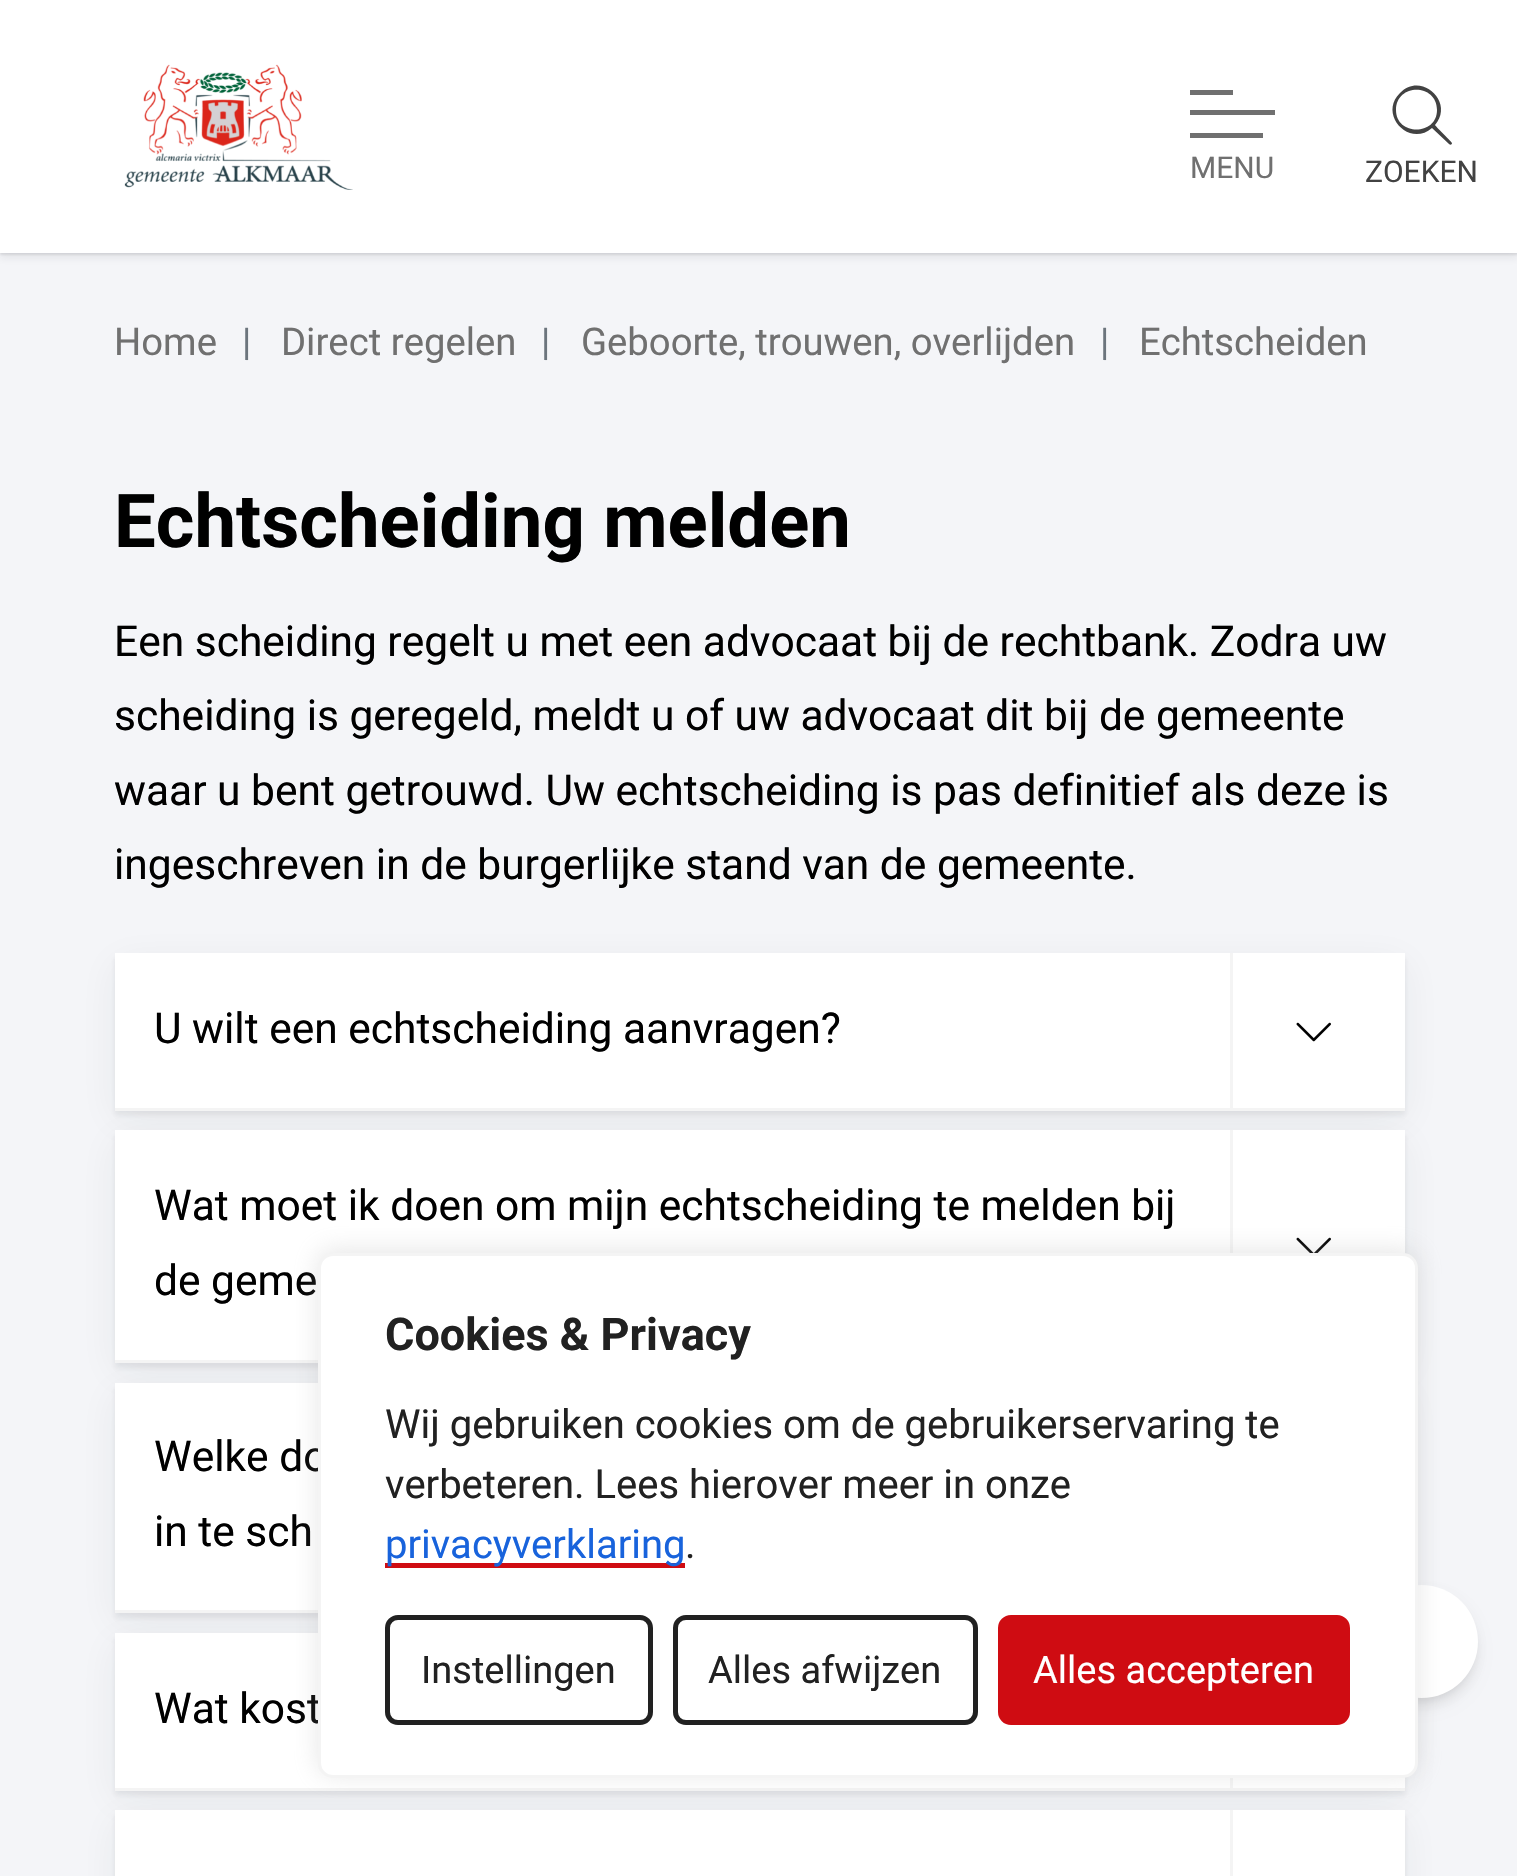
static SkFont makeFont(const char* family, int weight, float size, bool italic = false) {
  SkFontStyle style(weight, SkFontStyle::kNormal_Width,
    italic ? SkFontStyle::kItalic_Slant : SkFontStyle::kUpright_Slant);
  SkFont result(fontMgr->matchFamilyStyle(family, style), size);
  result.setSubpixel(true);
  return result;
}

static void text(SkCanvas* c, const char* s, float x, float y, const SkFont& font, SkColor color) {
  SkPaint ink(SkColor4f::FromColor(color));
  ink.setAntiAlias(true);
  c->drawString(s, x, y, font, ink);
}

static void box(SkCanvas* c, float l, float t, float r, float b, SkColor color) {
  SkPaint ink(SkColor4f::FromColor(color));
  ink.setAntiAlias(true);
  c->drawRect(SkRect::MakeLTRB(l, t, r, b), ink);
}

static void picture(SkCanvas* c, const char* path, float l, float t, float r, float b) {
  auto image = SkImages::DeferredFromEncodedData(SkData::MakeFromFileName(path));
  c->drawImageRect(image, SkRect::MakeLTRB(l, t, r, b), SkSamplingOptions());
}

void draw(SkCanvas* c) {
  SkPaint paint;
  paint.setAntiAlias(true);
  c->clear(0xfff4f5f8);
  paint.setColor(0x1a282c35);
  paint.setMaskFilter(SkMaskFilter::MakeBlur(kNormal_SkBlurStyle, 1));
  c->drawRect(SkRect::MakeLTRB(0, 3, 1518, 255), paint);
  paint.setMaskFilter(nullptr);
  paint.setColor(0x14282c35);
  paint.setMaskFilter(SkMaskFilter::MakeBlur(kNormal_SkBlurStyle, 4));
  c->drawRect(SkRect::MakeLTRB(0, 5, 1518, 258), paint);
  paint.setMaskFilter(nullptr);
  box(c, 0, 0, 1517, 253, 0xffffffff);
  picture(c, "img_01.png", 124, 64, 353, 190);
  box(c, 1190, 90, 1233, 95, 0xff707070);
  box(c, 1190, 110, 1275, 115, 0xff707070);
  box(c, 1190, 133, 1263, 138, 0xff707070);
  SkFont face1 = makeFont("Roboto", 400, 30);
  text(c, "MENU", 1190, 178, face1, 0xff707070);
  paint.setColor(0xff424242);
  c->drawPath(SkPathBuilder().moveTo(1437, 110).cubicTo(1437, 83, 1396, 83, 1396, 110).cubicTo(1396, 136, 1437, 136, 1437, 110).close().moveTo(1432, 128).cubicTo(1409, 148, 1378, 114, 1400, 93).cubicTo(1421, 71, 1455, 102, 1435, 125).cubicTo(1437, 128, 1452, 142, 1452, 143).cubicTo(1452, 145, 1450, 145, 1449, 144).close().detach(), paint);
  text(c, "ZOEKEN", 1365, 182, face1, 0xff424242);
  SkFont face2 = makeFont("Roboto", 400, 38.25f);
  text(c, "Home", 114, 355, face2, 0xff707070);
  text(c, "|", 242, 355, face2, 0xff6c757d);
  text(c, "Direct regelen", 281, 355, face2, 0xff707070);
  text(c, "|", 541, 355, face2, 0xff6c757d);
  text(c, "Geboorte, trouwen, overlijden", 581, 355, face2, 0xff707070);
  text(c, "|", 1100, 355, face2, 0xff6c757d);
  text(c, "Echtscheiden", 1139, 355, face2, 0xff707070);
  SkFont face3 = makeFont("Roboto", 700, 74.25f);
  text(c, "Echtscheiding melden", 114, 547, face3, 0xff000000);
  SkFont face4 = makeFont("Roboto", 400, 42.5f);
  text(c, "Een scheiding regelt u met een advocaat bij de rechtbank. Zodra uw", 114, 656, face4, 0xff000000);
  text(c, "scheiding is geregeld, meldt u of uw advocaat dit bij de gemeente", 114, 730, face4, 0xff000000);
  text(c, "waar u bent getrouwd. Uw echtscheiding is pas definitief als deze is", 114, 805, face4, 0xff000000);
  text(c, "ingeschreven in de burgerlijke stand van de gemeente.", 114, 879, face4, 0xff000000);
  paint.setColor(0x14282c35);
  paint.setMaskFilter(SkMaskFilter::MakeBlur(kNormal_SkBlurStyle, 2.5f));
  c->drawRect(SkRect::MakeLTRB(115, 958, 1405, 1115), paint);
  paint.setMaskFilter(nullptr);
  paint.setColor(0x0f282c35);
  paint.setMaskFilter(SkMaskFilter::MakeBlur(kNormal_SkBlurStyle, 19));
  c->drawRect(SkRect::MakeLTRB(115, 963, 1405, 1120), paint);
  paint.setMaskFilter(nullptr);
  paint.setMaskFilter(SkMaskFilter::MakeBlur(kNormal_SkBlurStyle, 19));
  c->drawRect(SkRect::MakeLTRB(115, 1140, 1405, 1373), paint);
  paint.setMaskFilter(nullptr);
  box(c, 115, 953, 1405, 1108, 0xffffffff);
  box(c, 115, 1108, 1405, 1111, 0xfff4f4f4);
  text(c, "U wilt een echtscheiding aanvragen?", 154, 1043, face4, 0xff000000);
  box(c, 1230, 953, 1233, 1108, 0xfff4f4f4);
  picture(c, "img_02.png", 1296, 1022, 1331, 1042);
  paint.setColor(0x14282c35);
  paint.setMaskFilter(SkMaskFilter::MakeBlur(kNormal_SkBlurStyle, 2.5f));
  c->drawRect(SkRect::MakeLTRB(115, 1135, 1405, 1368), paint);
  paint.setMaskFilter(nullptr);
  paint.setColor(0x0f282c35);
  paint.setMaskFilter(SkMaskFilter::MakeBlur(kNormal_SkBlurStyle, 19));
  c->drawRect(SkRect::MakeLTRB(115, 1393, 1405, 1623), paint);
  paint.setMaskFilter(nullptr);
  box(c, 115, 1130, 1405, 1360, 0xffffffff);
  box(c, 115, 1360, 318, 1363, 0xfff4f4f4);
  text(c, "Wat moet ik doen om mijn echtscheiding te melden bij", 154, 1220, face4, 0xff000000);
  box(c, 1230, 1130, 1233, 1253, 0xfff4f4f4);
  picture(c, "img_03.png", 1296, 1237, 1331, 1253);
  text(c, "de geme", 154, 1295, face4, 0xff000000);
  paint.setColor(0x14282c35);
  paint.setMaskFilter(SkMaskFilter::MakeBlur(kNormal_SkBlurStyle, 2.5f));
  c->drawRect(SkRect::MakeLTRB(115, 1388, 1405, 1618), paint);
  paint.setMaskFilter(nullptr);
  paint.setColor(0x0f282c35);
  paint.setMaskFilter(SkMaskFilter::MakeBlur(kNormal_SkBlurStyle, 19));
  c->drawRect(SkRect::MakeLTRB(115, 1643, 1405, 1800), paint);
  paint.setMaskFilter(nullptr);
  box(c, 115, 1383, 318, 1610, 0xffffffff);
  box(c, 115, 1610, 318, 1613, 0xfff4f4f4);
  text(c, "Welke do", 154, 1471, face4, 0xff000000);
  text(c, "in te sch", 154, 1546, face4, 0xff000000);
  paint.setColor(0x14282c35);
  paint.setMaskFilter(SkMaskFilter::MakeBlur(kNormal_SkBlurStyle, 2.5f));
  c->drawRect(SkRect::MakeLTRB(115, 1638, 1405, 1795), paint);
  paint.setMaskFilter(nullptr);
  paint.setColor(0x0f282c35);
  paint.setMaskFilter(SkMaskFilter::MakeBlur(kNormal_SkBlurStyle, 19));
  c->drawRect(SkRect::MakeLTRB(115, 1820, 1405, 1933), paint);
  paint.setMaskFilter(nullptr);
  box(c, 115, 1633, 1405, 1788, 0xffffffff);
  box(c, 115, 1788, 1405, 1791, 0xfff4f4f4);
  text(c, "Wat kost", 154, 1723, face4, 0xff000000);
  box(c, 1230, 1778, 1233, 1788, 0xfff4f4f4);
  paint.setColor(0x14282c35);
  paint.setMaskFilter(SkMaskFilter::MakeBlur(kNormal_SkBlurStyle, 2.5f));
  c->drawRect(SkRect::MakeLTRB(115, 1815, 1405, 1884), paint);
  paint.setMaskFilter(nullptr);
  box(c, 115, 1810, 1405, 1876, 0xffffffff);
  box(c, 1230, 1810, 1233, 1876, 0xfff4f4f4);
  paint.setColor(0x0f000000);
  paint.setMaskFilter(SkMaskFilter::MakeBlur(kNormal_SkBlurStyle, 5));
  c->drawRoundRect(SkRect::MakeLTRB(1368, 1593, 1475, 1700), 53.5f, 53.5f, paint);
  paint.setMaskFilter(nullptr);
  paint.setColor(0x1a000000);
  paint.setMaskFilter(SkMaskFilter::MakeBlur(kNormal_SkBlurStyle, 7.5f));
  c->drawRoundRect(SkRect::MakeLTRB(1368, 1598, 1475, 1705), 53.5f, 53.5f, paint);
  paint.setMaskFilter(nullptr);
  paint.setColor(0xffffffff);
  c->drawCircle(1421.5f, 1641.5f, 56.5f, paint);
  paint.setColor(0x4dacabab);
  paint.setMaskFilter(SkMaskFilter::MakeBlur(kNormal_SkBlurStyle, 12.5f));
  c->drawRoundRect(SkRect::MakeLTRB(318, 1250, 1418, 1775), 15, 15, paint);
  paint.setMaskFilter(nullptr);
  paint.setColor(0xffffffff);
  c->drawRoundRect(SkRect::MakeLTRB(319.5f, 1254.5f, 1416.5f, 1776.5f), 13.5f, 13.5f, paint);
  paint.setStyle(SkPaint::kStroke_Style);
  paint.setStrokeWidth(3);
  paint.setColor(0xfff4f4f4);
  c->drawRoundRect(SkRect::MakeLTRB(319.5f, 1254.5f, 1416.5f, 1776.5f), 13.5f, 13.5f, paint);
  SkFont face5 = makeFont("Roboto", 700, 45);
  text(c, "Cookies & Privacy", 385, 1350, face5, 0xff212121);
  SkFont face6 = makeFont("Roboto", 400, 40);
  text(c, "Wij gebruiken cookies om de gebruikerservaring te", 385, 1438, face6, 0xff212121);
  text(c, "verbeteren. Lees hierover meer in onze", 385, 1498, face6, 0xff212121);
  box(c, 385, 1563, 685, 1568, 0xffcf0c12);
  text(c, "privacyverklaring", 385, 1558, face6, 0xff1863dc);
  text(c, ".", 685, 1558, face6, 0xff212121);
  paint.setStrokeWidth(5);
  paint.setColor(0xff212121);
  c->drawRoundRect(SkRect::MakeLTRB(387.5f, 1617.5f, 650.5f, 1722.5f), 10.5f, 10.5f, paint);
  SkFont face7 = makeFont("Roboto", 400, 38);
  text(c, "Instellingen", 421, 1683, face7, 0xff212121);
  c->drawRoundRect(SkRect::MakeLTRB(675.5f, 1617.5f, 975.5f, 1722.5f), 10.5f, 10.5f, paint);
  text(c, "Alles afwijzen", 708, 1683, face7, 0xff212121);
  paint.setStyle(SkPaint::kFill_Style);
  paint.setColor(0xffcf0c12);
  c->drawRoundRect(SkRect::MakeLTRB(1000.5f, 1617.5f, 1347.5f, 1722.5f), 10.5f, 10.5f, paint);
  paint.setStyle(SkPaint::kStroke_Style);
  c->drawRoundRect(SkRect::MakeLTRB(1000.5f, 1617.5f, 1347.5f, 1722.5f), 10.5f, 10.5f, paint);
  text(c, "Alles accepteren", 1033, 1683, face7, 0xffffffff);
}
